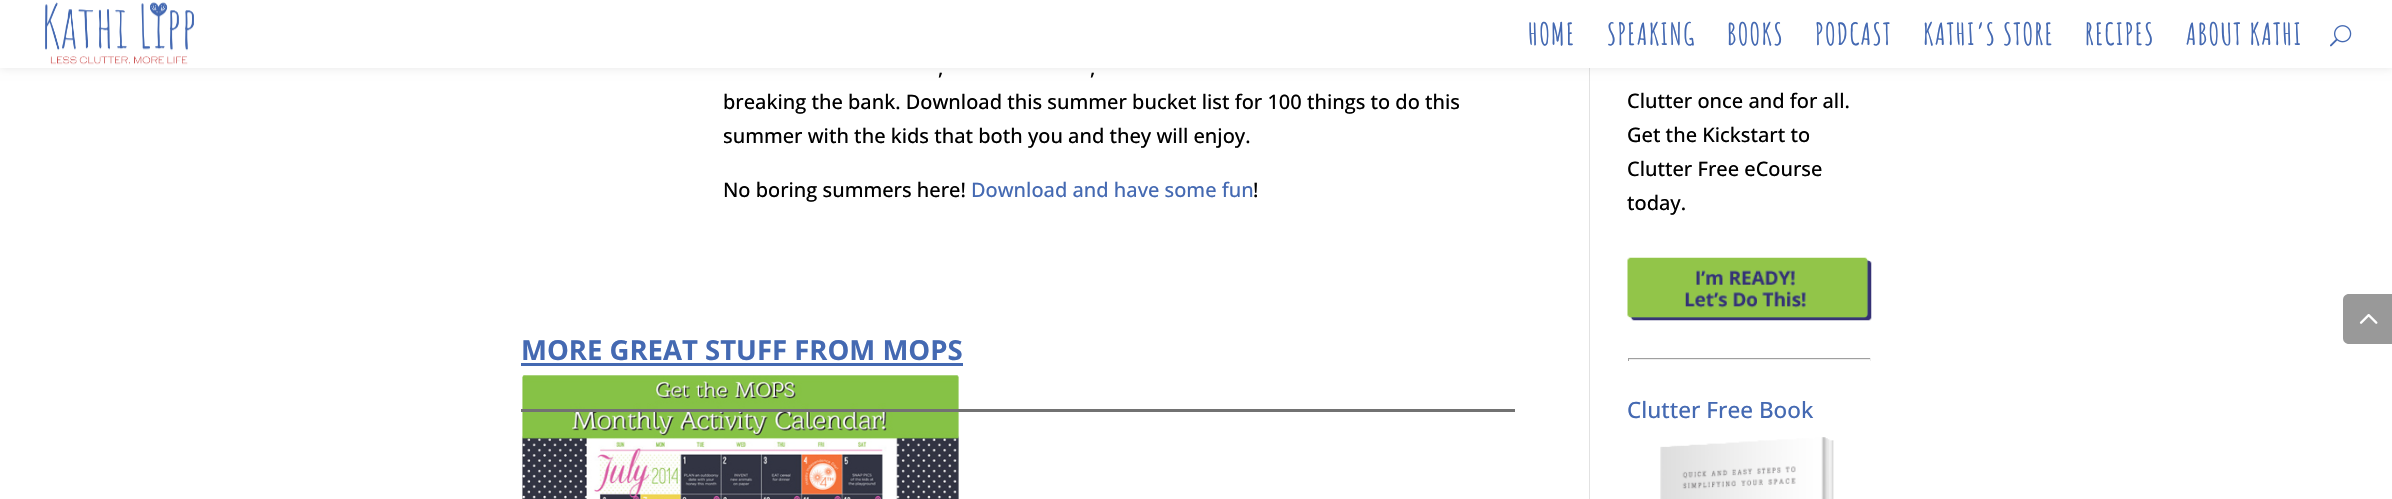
static SkFont makeFont(const char* family, int weight, float size, bool italic = false) {
  SkFontStyle style(weight, SkFontStyle::kNormal_Width,
    italic ? SkFontStyle::kItalic_Slant : SkFontStyle::kUpright_Slant);
  SkFont result(fontMgr->matchFamilyStyle(family, style), size);
  result.setSubpixel(true);
  return result;
}

static void text(SkCanvas* c, const char* s, float x, float y, const SkFont& font, SkColor color) {
  SkPaint ink(SkColor4f::FromColor(color));
  ink.setAntiAlias(true);
  c->drawString(s, x, y, font, ink);
}

static void spacedText(SkCanvas* c, const char* s, float x, float y, const SkFont& font, const SkPaint& ink, float letter, float word) {
  std::vector<SkGlyphID> glyphs(font.countText(s, strlen(s), SkTextEncoding::kUTF8));
  std::vector<float> xs(glyphs.size());
  font.textToGlyphs(s, strlen(s), SkTextEncoding::kUTF8, glyphs);
  font.getXPos(glyphs, xs, x);
  float extra = 0;
  for (size_t i = 0; i < glyphs.size(); i++) {
    xs[i] += extra;
    extra += letter + word * (glyphs[i] == font.unicharToGlyph(' '));
  }
  c->drawTextBlob(SkTextBlob::MakeFromPosHGlyphs(glyphs, xs, y, font), 0, 0, ink);
}

static void box(SkCanvas* c, float l, float t, float r, float b, SkColor color) {
  SkPaint ink(SkColor4f::FromColor(color));
  ink.setAntiAlias(true);
  c->drawRect(SkRect::MakeLTRB(l, t, r, b), ink);
}

static void picture(SkCanvas* c, const char* path, float l, float t, float r, float b) {
  auto image = SkImages::DeferredFromEncodedData(SkData::MakeFromFileName(path));
  c->drawImageRect(image, SkRect::MakeLTRB(l, t, r, b), SkSamplingOptions());
}

void draw(SkCanvas* c) {
  SkPaint paint;
  paint.setAntiAlias(true);
  c->clear(0xffffffff);
  box(c, 1589, 68, 1590, 499, 0xffe2e2e2);
  paint.setColor(0x1a000000);
  paint.setMaskFilter(SkMaskFilter::MakeBlur(kNormal_SkBlurStyle, 4.5f));
  c->drawRect(SkRect::MakeLTRB(0, 0, 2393, 68), paint);
  paint.setMaskFilter(nullptr);
  box(c, 0, 0, 2392, 68, 0xffffffff);
  picture(c, "img_01.png", 45, 2, 194, 65);
  SkFont face1 = makeFont("Amatic SC", 700, 30);
  paint.setColor(0xff4469b2);
  spacedText(c, "HOME", 1528, 45, face1, paint, 1.25f, 0);
  spacedText(c, "SPEAKING", 1607, 45, face1, paint, 1.25f, 0);
  spacedText(c, "BOOKS", 1727, 45, face1, paint, 1.25f, 0);
  spacedText(c, "PODCAST", 1815, 45, face1, paint, 1.25f, 0);
  spacedText(c, "KATHI’S STORE", 1923, 45, face1, paint, 1.25f, 0);
  spacedText(c, "RECIPES", 2085, 45, face1, paint, 1.25f, 0);
  spacedText(c, "ABOUT KATHI", 2186, 45, face1, paint, 1.25f, 0);
  picture(c, "img_02.png", 2330, 25, 2352, 47);
  SkFont face2 = makeFont("Open Sans", 500, 20);
  text(c, ",", 938, 75, face2, 0xff000000);
  text(c, ",", 1090, 75, face2, 0xff000000);
  text(c, "breaking the bank. Download this summer bucket list for 100 things to do this", 723, 109, face2, 0xff000000);
  text(c, "summer with the kids that both you and they will enjoy.", 723, 143, face2, 0xff000000);
  text(c, "No boring summers here!", 723, 197, face2, 0xff000000);
  text(c, "Download and have some fun", 971, 197, face2, 0xff4469b2);
  text(c, "!", 1253, 197, face2, 0xff000000);
  SkFont face3 = makeFont("Open Sans", 700, 27.5f);
  text(c, "MORE GREAT STUFF FROM MOPS", 521, 360, face3, 0xff4469b2);
  box(c, 521, 363, 963, 366, 0xff4469b2);
  picture(c, "img_03.png", 522, 375, 959, 499);
  box(c, 521, 409, 1515, 412, 0xff727272);
  text(c, "Clutter once and for all.", 1627, 108, face2, 0xff000000);
  text(c, "Get the Kickstart to", 1627, 142, face2, 0xff000000);
  text(c, "Clutter Free eCourse", 1627, 176, face2, 0xff000000);
  text(c, "today.", 1627, 210, face2, 0xff000000);
  picture(c, "img_04.png", 1627, 257, 1872, 321);
  box(c, 1628, 358, 1871, 359, 0xff9f9f9f);
  box(c, 1870, 358, 1871, 361, 0xffeeeeee);
  box(c, 1628, 359, 1871, 360, 0xffeeeeee);
  box(c, 1628, 358, 1629, 361, 0xff9f9f9f);
  SkFont face4 = makeFont("Open Sans", 500, 22.5f);
  text(c, "Clutter Free Book", 1627, 418, face4, 0xff4469b2);
  picture(c, "img_05.png", 1660, 437, 1834, 499);
  paint.setColor(0xff999999);
  c->drawPath(SkPathBuilder().moveTo(2349, 294).lineTo(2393, 294).lineTo(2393, 344).lineTo(2349, 344).cubicTo(2345.5f, 344, 2343, 341.5f, 2343, 338).lineTo(2343, 300).cubicTo(2343, 296.5f, 2345.5f, 294, 2349, 294).close().detach(), paint);
  picture(c, "img_06.png", 2359, 314, 2378, 324);
}
